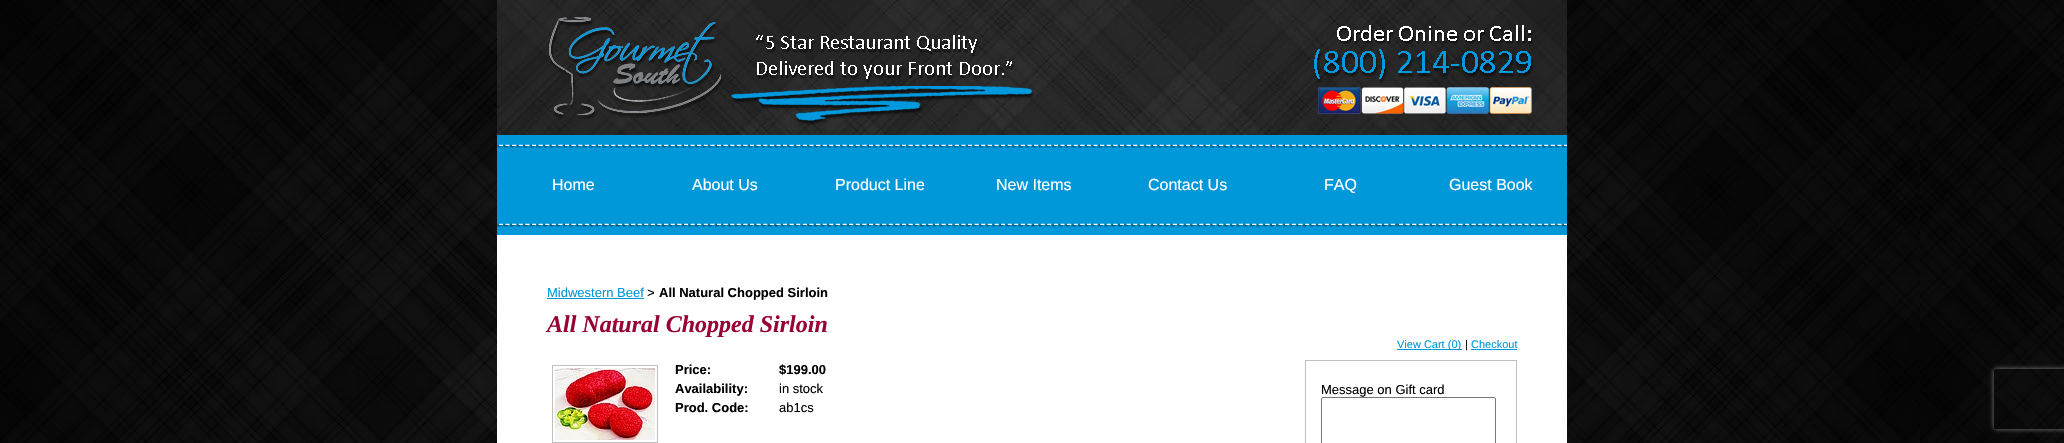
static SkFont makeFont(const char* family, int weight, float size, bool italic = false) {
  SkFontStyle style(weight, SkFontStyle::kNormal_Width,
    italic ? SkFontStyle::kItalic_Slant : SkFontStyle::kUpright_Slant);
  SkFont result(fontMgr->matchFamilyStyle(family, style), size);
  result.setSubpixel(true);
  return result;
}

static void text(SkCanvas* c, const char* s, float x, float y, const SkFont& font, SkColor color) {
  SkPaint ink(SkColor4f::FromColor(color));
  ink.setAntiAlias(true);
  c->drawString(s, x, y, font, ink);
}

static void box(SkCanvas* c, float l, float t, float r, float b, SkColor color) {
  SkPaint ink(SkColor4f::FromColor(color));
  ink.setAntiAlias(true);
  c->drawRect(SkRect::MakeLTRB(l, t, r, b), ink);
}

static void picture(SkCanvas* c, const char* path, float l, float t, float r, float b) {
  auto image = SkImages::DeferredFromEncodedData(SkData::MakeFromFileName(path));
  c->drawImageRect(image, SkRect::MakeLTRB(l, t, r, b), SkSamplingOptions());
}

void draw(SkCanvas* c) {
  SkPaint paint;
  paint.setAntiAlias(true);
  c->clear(0xffffffff);
  picture(c, "img_01.png", 0, 0, 2064, 443);
  picture(c, "img_02.png", 497, 0, 1567, 135);
  picture(c, "img_03.png", 497, 135, 1567, 235);
  SkFont face1 = makeFont("Liberation Sans", 400, 16);
  text(c, "Home", 552, 190, face1, 0xffffffff);
  text(c, "About Us", 692, 190, face1, 0xffffffff);
  text(c, "Product Line", 835, 190, face1, 0xffffffff);
  text(c, "New Items", 996, 190, face1, 0xffffffff);
  text(c, "Contact Us", 1148, 190, face1, 0xffffffff);
  text(c, "FAQ", 1324, 190, face1, 0xffffffff);
  text(c, "Guest Book", 1449, 190, face1, 0xffffffff);
  box(c, 497, 235, 1567, 443, 0xffffffff);
  SkFont face2 = makeFont("Liberation Sans", 400, 13);
  text(c, "Midwestern Beef", 547, 297, face2, 0xff0098d9);
  box(c, 547, 298, 644, 299, 0xff0098d9);
  SkFont face3 = makeFont("Liberation Mono", 400, 13);
  text(c, ">", 647, 297, face3, 0xff000000);
  SkFont face4 = makeFont("Liberation Sans", 700, 13);
  text(c, "All Natural Chopped Sirloin", 659, 297, face4, 0xff000000);
  SkFont face5 = makeFont("Liberation Serif", 700, 24, true);
  text(c, "All Natural Chopped Sirloin", 547, 332, face5, 0xff990033);
  box(c, 1397, 349, 1462, 350, 0xff0098d9);
  SkFont face6 = makeFont("Liberation Sans", 400, 11);
  text(c, "View Cart (0)", 1397, 348, face6, 0xff0098d9);
  text(c, "|", 1465, 348, face6, 0xff000000);
  text(c, "Checkout", 1471, 348, face6, 0xff0098d9);
  box(c, 1471, 349, 1517, 350, 0xff0098d9);
  paint.setStyle(SkPaint::kStroke_Style);
  paint.setStrokeWidth(1);
  paint.setColor(0xffc0c0c0);
  c->drawRect(SkRect::MakeLTRB(552.5f, 365.5f, 657.5f, 442.5f), paint);
  picture(c, "img_04.png", 555, 368, 655, 440);
  text(c, "Price:", 675, 374, face4, 0xff000000);
  text(c, "$199.00", 779, 374, face4, 0xff000000);
  text(c, "Availability:", 675, 393, face4, 0xff000000);
  text(c, "in stock", 779, 393, face2, 0xff000000);
  text(c, "Prod. Code:", 675, 412, face4, 0xff000000);
  text(c, "ab1cs", 779, 412, face2, 0xff000000);
  c->drawRect(SkRect::MakeLTRB(1305.5f, 360.5f, 1516.5f, 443.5f), paint);
  text(c, "Message on Gift card", 1321, 394, face2, 0xff000000);
  paint.setColor(0xff767676);
  c->drawRoundRect(SkRect::MakeLTRB(1321.5f, 397.5f, 1495.5f, 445.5f), 1.5f, 1.5f, paint);
  c->save();
  c->clipPath(SkPathBuilder(SkPathFillType::kEvenOdd).moveTo(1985, 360).lineTo(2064, 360).lineTo(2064, 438).lineTo(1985, 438).close().moveTo(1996, 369).lineTo(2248, 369).cubicTo(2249, 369, 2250, 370, 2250, 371).lineTo(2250, 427).cubicTo(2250, 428, 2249, 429, 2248, 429).lineTo(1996, 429).cubicTo(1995, 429, 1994, 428, 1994, 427).lineTo(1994, 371).cubicTo(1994, 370, 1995, 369, 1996, 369).close().detach(), true);
  paint.setStyle(SkPaint::kFill_Style);
  paint.setColor(0xff808080);
  paint.setMaskFilter(SkMaskFilter::MakeBlur(kNormal_SkBlurStyle, 2.5f));
  c->drawRoundRect(SkRect::MakeLTRB(1994, 369, 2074, 429), 2, 2, paint);
  paint.setMaskFilter(nullptr);
  c->restore();
}
